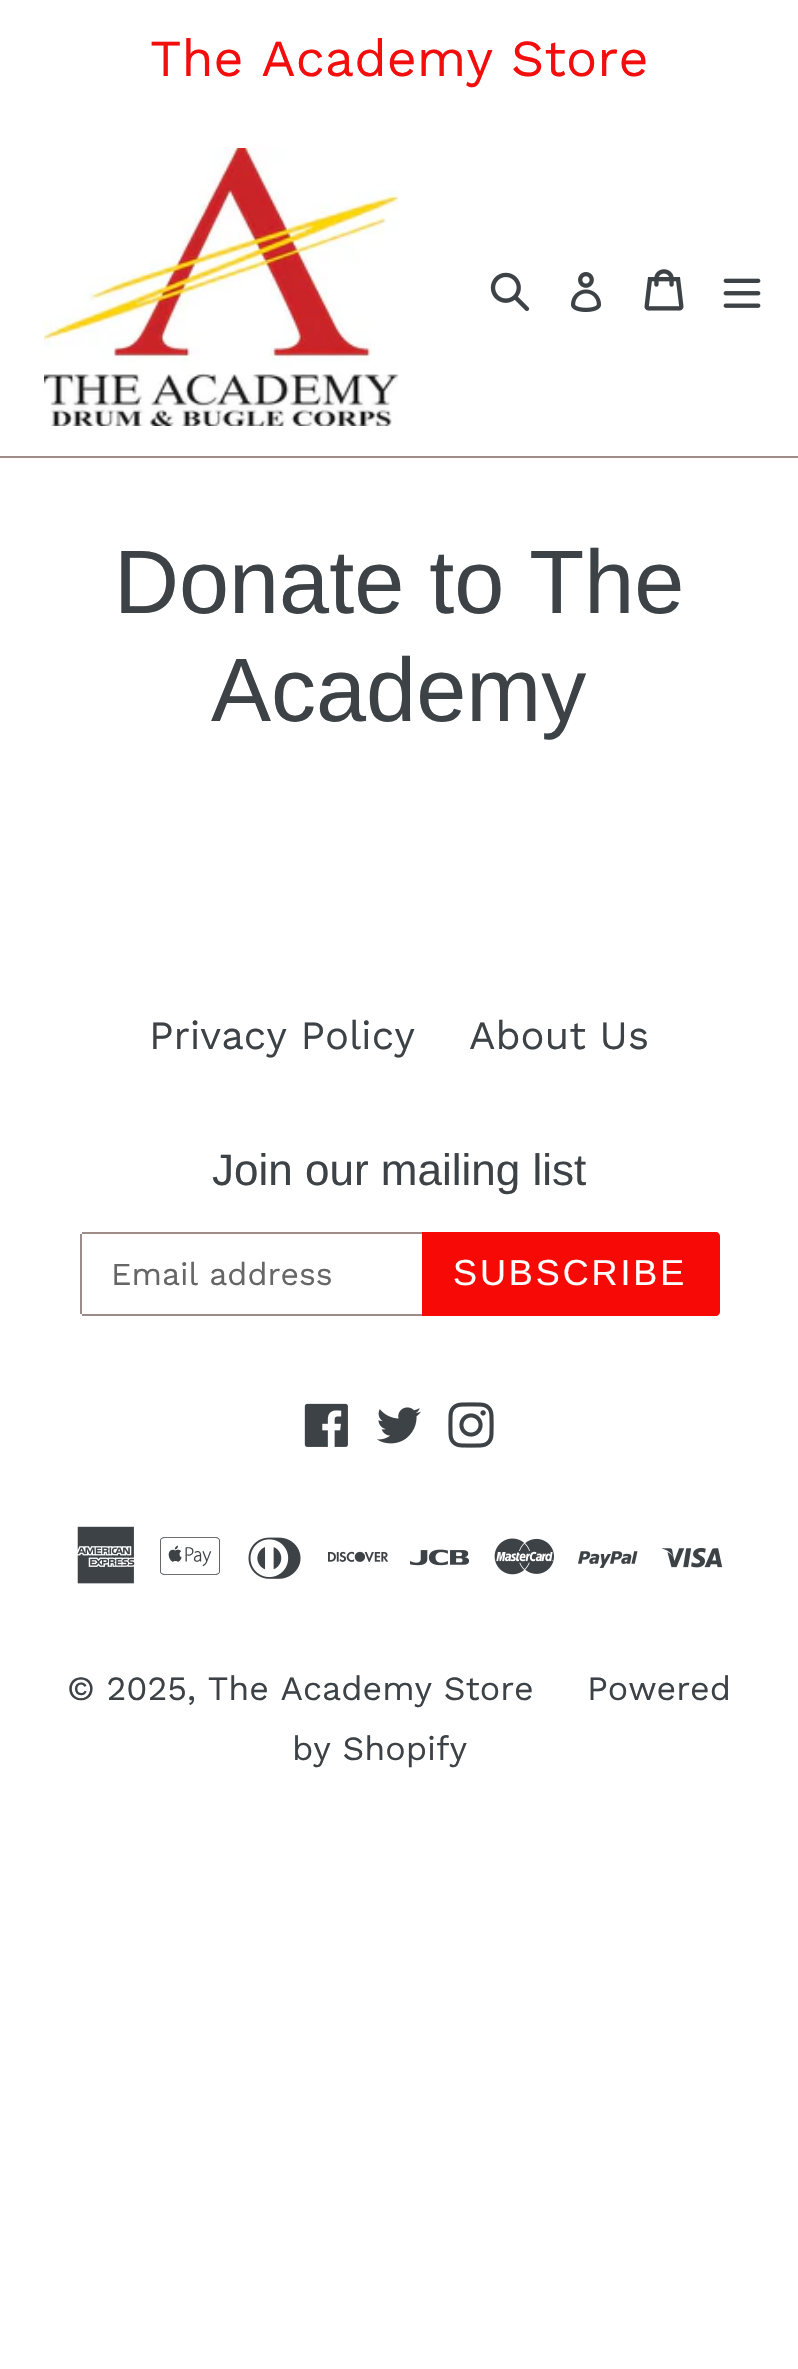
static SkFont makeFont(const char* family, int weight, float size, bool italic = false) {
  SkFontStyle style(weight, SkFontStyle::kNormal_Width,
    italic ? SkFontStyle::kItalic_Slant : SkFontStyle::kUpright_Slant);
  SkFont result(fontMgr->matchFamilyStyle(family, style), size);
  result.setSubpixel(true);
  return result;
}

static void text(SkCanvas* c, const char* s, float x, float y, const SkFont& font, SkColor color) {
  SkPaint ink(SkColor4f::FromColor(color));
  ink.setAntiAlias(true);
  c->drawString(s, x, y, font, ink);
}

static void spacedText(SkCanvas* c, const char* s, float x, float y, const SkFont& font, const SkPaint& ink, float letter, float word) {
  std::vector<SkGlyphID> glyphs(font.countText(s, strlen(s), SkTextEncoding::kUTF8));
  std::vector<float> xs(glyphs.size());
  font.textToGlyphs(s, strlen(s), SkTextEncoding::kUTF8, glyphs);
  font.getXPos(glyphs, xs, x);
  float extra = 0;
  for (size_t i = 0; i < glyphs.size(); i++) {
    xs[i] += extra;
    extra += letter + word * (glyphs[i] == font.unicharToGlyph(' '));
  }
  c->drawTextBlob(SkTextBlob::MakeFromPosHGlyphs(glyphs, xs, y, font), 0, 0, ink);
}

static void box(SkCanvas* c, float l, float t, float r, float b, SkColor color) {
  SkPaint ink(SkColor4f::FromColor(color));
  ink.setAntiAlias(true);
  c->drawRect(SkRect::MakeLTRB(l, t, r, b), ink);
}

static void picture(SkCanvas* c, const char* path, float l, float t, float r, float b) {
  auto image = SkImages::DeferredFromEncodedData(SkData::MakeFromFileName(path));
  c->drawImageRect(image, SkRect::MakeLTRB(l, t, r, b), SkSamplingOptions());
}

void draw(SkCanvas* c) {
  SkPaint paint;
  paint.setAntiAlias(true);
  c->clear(0xffffffff);
  SkFont face1 = makeFont("Work Sans", 400, 52);
  text(c, "The Academy Store", 150, 76, face1, 0xfff30e0e);
  box(c, 0, 456, 798, 458, 0xff9d8c8a);
  picture(c, "img_01.png", 44, 148, 398, 426);
  picture(c, "img_02.png", 490, 272, 530, 312);
  picture(c, "img_03.png", 571, 272, 602, 312);
  picture(c, "img_04.png", 644, 269, 684, 311);
  picture(c, "img_05.png", 723, 278, 761, 308);
  SkFont face2 = makeFont("Liberation Sans", 400, 90);
  text(c, "Donate to The", 114, 613, face2, 0xff3d4246);
  text(c, "Academy", 211, 721, face2, 0xff3d4246);
  SkFont face3 = makeFont("Work Sans", 400, 40);
  text(c, "Privacy Policy", 149, 1049, face3, 0xff3d4246);
  text(c, "About Us", 469, 1049, face3, 0xff3d4246);
  SkFont face4 = makeFont("Liberation Sans", 400, 44);
  text(c, "Join our mailing list", 212, 1185, face4, 0xff3d4246);
  box(c, 82, 1232, 422, 1234, 0xff9d8c8a);
  box(c, 82, 1314, 422, 1316, 0xff9d8c8a);
  box(c, 80, 1234, 82, 1314, 0xff9d8c8a);
  SkFont face5 = makeFont("Work Sans", 400, 32);
  text(c, "Email address", 111, 1285, face5, 0xff666666);
  paint.setColor(0xfff70a05);
  c->drawPath(SkPathBuilder().moveTo(422, 1232).lineTo(716, 1232).cubicTo(718, 1232, 720, 1234, 720, 1236).lineTo(720, 1312).cubicTo(720, 1314, 718, 1316, 716, 1316).lineTo(422, 1316).close().detach(), paint);
  SkFont face6 = makeFont("Liberation Sans", 400, 36);
  paint.setColor(0xffffffff);
  spacedText(c, "SUBSCRIBE", 453, 1285, face6, paint, 2.9f, 0);
  picture(c, "img_06.png", 304, 1403, 348, 1447);
  picture(c, "img_07.png", 377, 1407, 421, 1444);
  picture(c, "img_08.png", 448, 1402, 494, 1448);
  picture(c, "img_09.png", 77, 1526, 135, 1584);
  picture(c, "img_10.png", 160, 1537, 220, 1575);
  picture(c, "img_11.png", 248, 1537, 301, 1579);
  picture(c, "img_12.png", 328, 1551, 388, 1562);
  picture(c, "img_13.png", 410, 1549, 470, 1566);
  picture(c, "img_14.png", 494, 1538, 554, 1575);
  picture(c, "img_15.png", 578, 1551, 638, 1568);
  picture(c, "img_16.png", 662, 1547, 722, 1568);
  SkFont face7 = makeFont("Work Sans", 400, 34);
  text(c, "© 2025, The Academy Store", 67, 1700, face7, 0xff3d4246);
  text(c, "Powered", 587, 1700, face7, 0xff3d4246);
  text(c, "by Shopify", 292, 1760, face7, 0xff3d4246);
}
